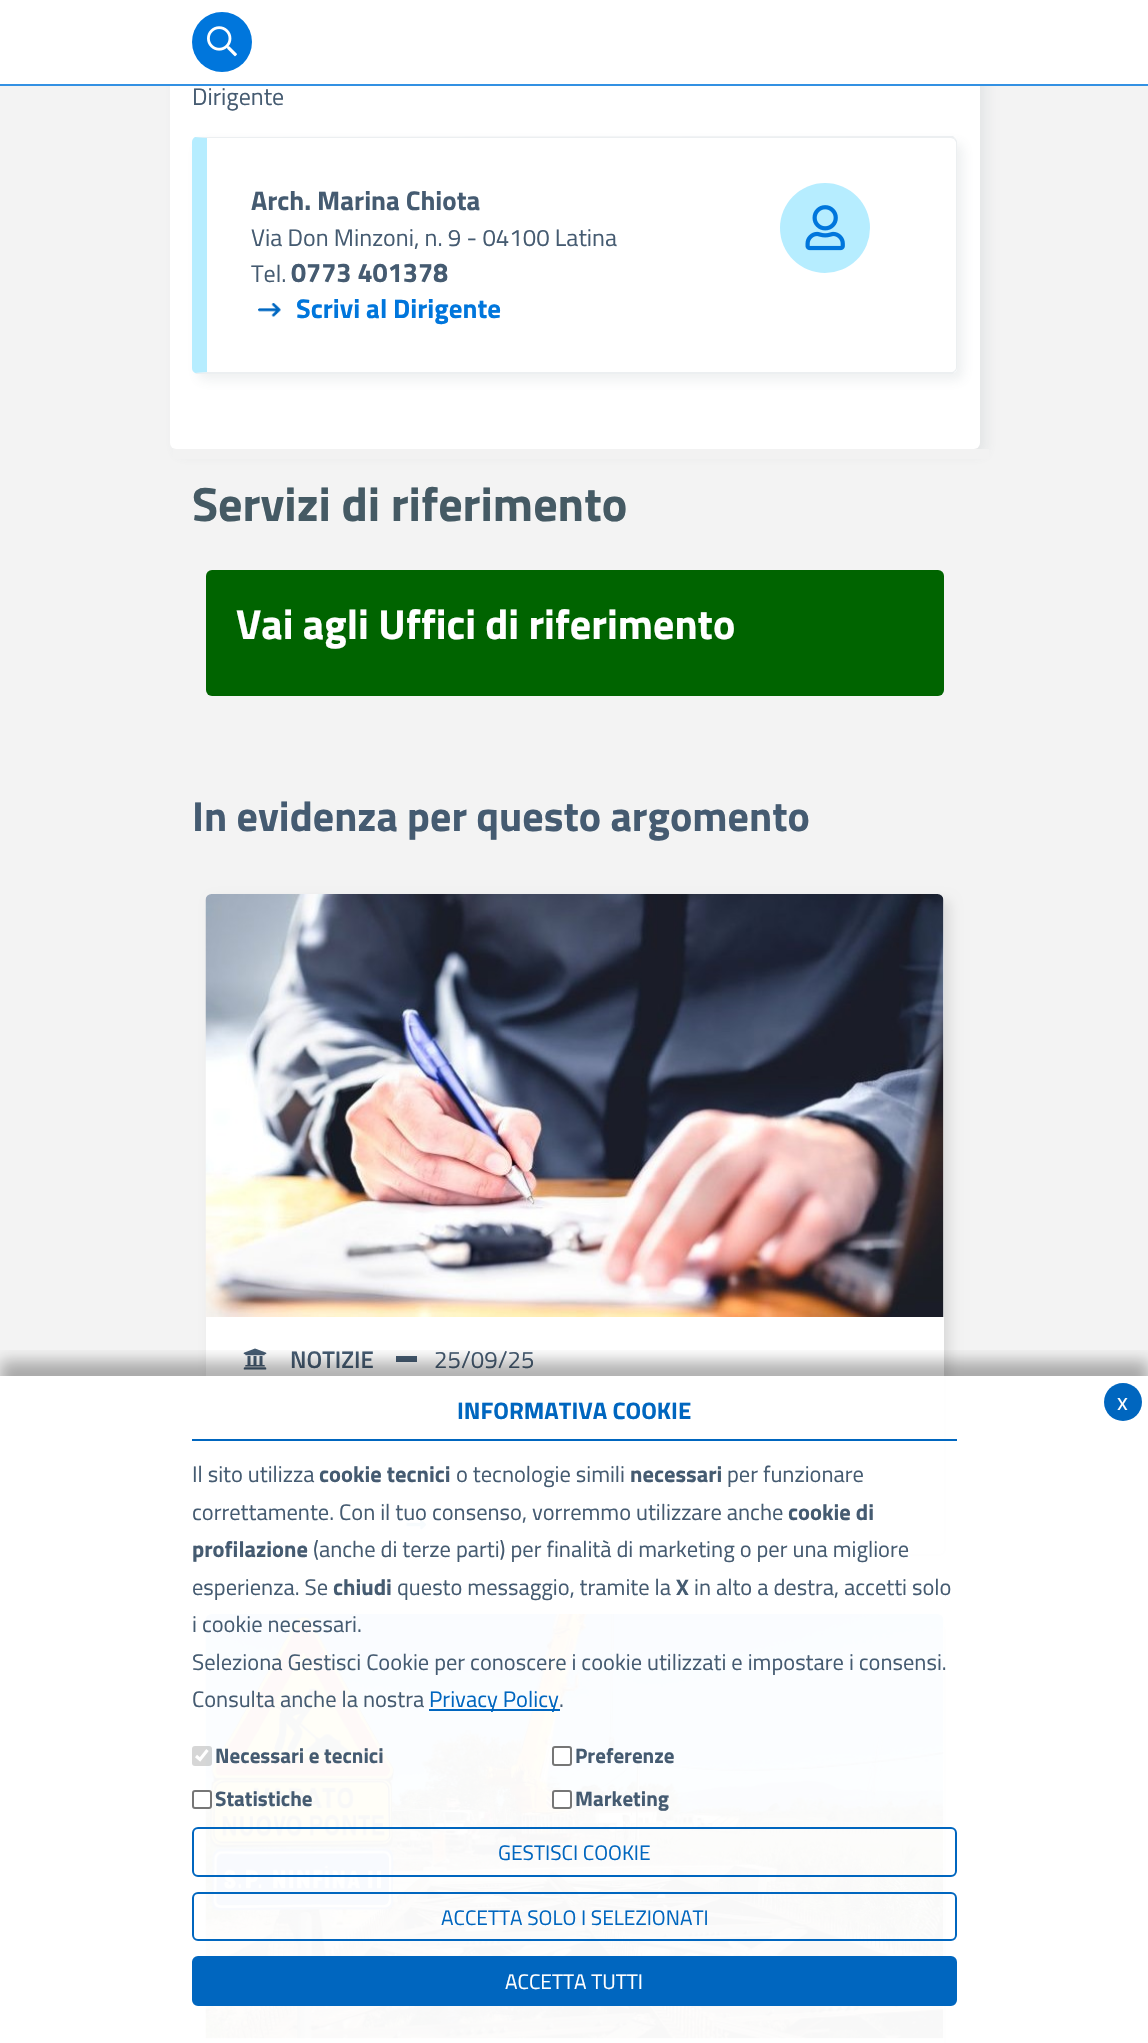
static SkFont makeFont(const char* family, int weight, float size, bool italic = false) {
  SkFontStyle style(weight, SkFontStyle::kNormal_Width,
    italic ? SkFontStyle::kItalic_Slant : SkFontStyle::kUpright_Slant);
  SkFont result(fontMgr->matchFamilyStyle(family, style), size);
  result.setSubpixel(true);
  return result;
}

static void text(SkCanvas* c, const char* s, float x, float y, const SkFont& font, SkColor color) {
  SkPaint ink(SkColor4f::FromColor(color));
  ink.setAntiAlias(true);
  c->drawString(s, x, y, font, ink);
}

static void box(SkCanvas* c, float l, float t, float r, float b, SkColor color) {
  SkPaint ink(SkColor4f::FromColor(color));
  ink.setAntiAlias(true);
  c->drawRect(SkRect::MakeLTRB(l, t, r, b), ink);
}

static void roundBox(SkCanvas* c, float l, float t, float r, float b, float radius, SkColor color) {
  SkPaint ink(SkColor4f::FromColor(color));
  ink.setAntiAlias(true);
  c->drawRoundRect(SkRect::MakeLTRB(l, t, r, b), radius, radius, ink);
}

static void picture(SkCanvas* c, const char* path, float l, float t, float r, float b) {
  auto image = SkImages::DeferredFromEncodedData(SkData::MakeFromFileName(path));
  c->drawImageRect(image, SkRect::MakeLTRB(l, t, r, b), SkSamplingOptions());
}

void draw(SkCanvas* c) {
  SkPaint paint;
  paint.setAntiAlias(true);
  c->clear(0xfff3f3f3);
  paint.setColor(0x1a5a6772);
  paint.setMaskFilter(SkMaskFilter::MakeBlur(kNormal_SkBlurStyle, 6));
  c->drawRoundRect(SkRect::MakeLTRB(176, -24, 986, 455), 6, 6, paint);
  paint.setMaskFilter(nullptr);
  roundBox(c, 170, -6, 980, 449, 6, 0xffffffff);
  box(c, 0, 0, 1148, 84, 0xffffffff);
  box(c, 0, 84, 1148, 86, 0xff3391e3);
  paint.setColor(0xff0076dc);
  c->drawCircle(222, 42, 30, paint);
  picture(c, "img_01.png", 207, 26, 237, 57);
  SkFont face1 = makeFont("Titillium Web", 400, 24);
  text(c, "Dirigente", 192, 105, face1, 0xff455b71);
  c->save();
  c->clipPath(SkPathBuilder(SkPathFillType::kEvenOdd).moveTo(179, 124).lineTo(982, 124).lineTo(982, 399).lineTo(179, 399).close().moveTo(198, 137).lineTo(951, 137).cubicTo(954.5f, 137, 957, 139.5f, 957, 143).lineTo(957, 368).cubicTo(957, 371.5f, 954.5f, 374, 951, 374).lineTo(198, 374).cubicTo(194.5f, 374, 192, 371.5f, 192, 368).lineTo(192, 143).cubicTo(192, 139.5f, 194.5f, 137, 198, 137).close().detach(), true);
  paint.setColor(0x1a5a6772);
  paint.setMaskFilter(SkMaskFilter::MakeBlur(kNormal_SkBlurStyle, 6));
  c->drawRoundRect(SkRect::MakeLTRB(198, 143, 963, 380), 6, 6, paint);
  paint.setMaskFilter(nullptr);
  c->restore();
  paint.setColor(0xffeceff1);
  c->drawPath(SkPathBuilder().moveTo(207, 138).lineTo(195, 137).lineTo(953, 136).lineTo(955, 138).lineTo(954, 139).lineTo(951, 138).close().detach(), paint);
  c->drawPath(SkPathBuilder().moveTo(957, 368).lineTo(957, 141).lineTo(955, 138).lineTo(954, 139).lineTo(956, 142).lineTo(956, 368).cubicTo(956, 369, 955, 370, 954, 371).lineTo(955, 372).cubicTo(956, 371, 957, 369, 957, 368).close().detach(), paint);
  c->drawPath(SkPathBuilder().moveTo(196, 374).lineTo(195, 373).lineTo(207, 372).lineTo(951, 372).cubicTo(952, 372, 953, 372, 954, 371).lineTo(955, 372).lineTo(953, 374).close().detach(), paint);
  paint.setColor(0xffb6edff);
  c->drawPath(SkPathBuilder().moveTo(207, 138).lineTo(195, 137).cubicTo(193, 138, 192, 140, 192, 142).lineTo(192, 368).cubicTo(192, 370, 193, 372, 195, 373).lineTo(207, 372).close().detach(), paint);
  SkFont face2 = makeFont("Titillium Web", 700, 27);
  text(c, "Arch. Marina Chiota", 251, 210, face2, 0xff455b71);
  text(c, "Via Don Minzoni, n. 9 - 04100 Latina", 251, 246, face1, 0xff455b71);
  text(c, "Tel.", 251, 282, face1, 0xff455b71);
  text(c, "0773 401378", 291, 282, face2, 0xff455b71);
  picture(c, "img_02.png", 258, 303, 281, 317);
  text(c, "Scrivi al Dirigente", 296, 318, face2, 0xff0076dc);
  c->drawCircle(825, 228, 45, paint);
  picture(c, "img_03.png", 805, 205, 845, 251);
  box(c, 173, 449, 989, 459, 0xfff2f2f2);
  SkFont face3 = makeFont("Titillium Web", 700, 48);
  text(c, "Servizi di riferimento", 192, 521, face3, 0xff455a64);
  roundBox(c, 206, 570, 944, 696, 6, 0xff006400);
  SkFont face4 = makeFont("Titillium Web", 700, 42);
  text(c, "Vai agli Uffici di riferimento", 236, 639, face4, 0xffffffff);
  text(c, "In evidenza per questo argomento", 192, 831, face4, 0xff455b71);
  paint.setColor(0x1a000000);
  paint.setMaskFilter(SkMaskFilter::MakeBlur(kNormal_SkBlurStyle, 6));
  c->drawRoundRect(SkRect::MakeLTRB(212, 900, 950, 1560), 6, 6, paint);
  paint.setMaskFilter(nullptr);
  roundBox(c, 206, 894, 944, 1554, 6, 0xffffffff);
  picture(c, "img_04.png", 205, 894, 944, 1317);
  picture(c, "img_05.png", 243, 1348, 267, 1370);
  SkFont face5 = makeFont("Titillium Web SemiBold", 600, 24);
  text(c, "NOTIZIE", 290, 1368, face5, 0xff455b71);
  box(c, 396, 1356, 417, 1362, 0xff455b71);
  text(c, "25/09/25", 434, 1368, face1, 0xff455b71);
  picture(c, "img_06.png", 406, 1519, 427, 1530);
  paint.setMaskFilter(SkMaskFilter::MakeBlur(kNormal_SkBlurStyle, 6));
  c->drawRoundRect(SkRect::MakeLTRB(212, 1620, 950, 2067), 6, 6, paint);
  paint.setMaskFilter(nullptr);
  roundBox(c, 206, 1614, 944, 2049, 6, 0xffffffff);
  picture(c, "img_07.png", 205, 1614, 944, 2039);
  c->save();
  c->clipRect(SkRect::MakeLTRB(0, 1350, 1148, 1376));
  paint.setColor(0x4d000000);
  paint.setMaskFilter(SkMaskFilter::MakeBlur(kNormal_SkBlurStyle, 7.5f));
  c->drawRect(SkRect::MakeLTRB(0, 1361, 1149, 2028), paint);
  paint.setMaskFilter(nullptr);
  c->restore();
  box(c, 0, 1376, 1148, 2043, 0xf7ffffff);
  box(c, 192, 1439, 957, 1441, 0xff0066bf);
  SkFont face6 = makeFont("Titillium Web", 700, 24);
  text(c, "INFORMATIVA COOKIE", 457, 1419, face6, 0xff0066bf);
  SkFont face7 = makeFont("Titillium Web", 400, 22.5f);
  text(c, "Il sito utilizza", 192, 1482, face7, 0xff455b71);
  SkFont face8 = makeFont("Titillium Web", 700, 22.5f);
  text(c, "cookie tecnici", 319, 1482, face8, 0xff455b71);
  text(c, "o tecnologie simili", 456, 1482, face7, 0xff455b71);
  text(c, "necessari", 630, 1482, face8, 0xff455b71);
  text(c, "per funzionare", 727, 1482, face7, 0xff455b71);
  text(c, "correttamente. Con il tuo consenso, vorremmo utilizzare anche", 192, 1520, face7, 0xff455b71);
  text(c, "cookie di", 788, 1520, face8, 0xff455b71);
  text(c, "profilazione", 192, 1557, face8, 0xff455b71);
  text(c, "(anche di terze parti) per finalità di marketing o per una migliore", 313, 1557, face7, 0xff455b71);
  text(c, "esperienza. Se", 192, 1595, face7, 0xff455b71);
  text(c, "chiudi", 333, 1595, face8, 0xff455b71);
  text(c, "questo messaggio, tramite la", 397, 1595, face7, 0xff455b71);
  text(c, "X", 676, 1595, face8, 0xff455b71);
  text(c, "in alto a destra, accetti solo", 694, 1595, face7, 0xff455b71);
  text(c, "i cookie necessari.", 192, 1632, face7, 0xff455b71);
  text(c, "Seleziona Gestisci Cookie per conoscere i cookie utilizzati e impostare i consensi.", 192, 1670, face7, 0xff455b71);
  text(c, "Consulta anche la nostra", 192, 1707, face7, 0xff455b71);
  box(c, 429, 1709, 560, 1711, 0xff0066bf);
  text(c, "Privacy Policy", 429, 1707, face7, 0xff0066bf);
  text(c, ".", 559, 1707, face7, 0xff455b71);
  roundBox(c, 192, 1746, 212, 1766, 3, 0x4d767676);
  paint.setStyle(SkPaint::kStroke_Style);
  paint.setStrokeWidth(3.1f);
  paint.setColor(0xffffffff);
  c->drawPath(SkPathBuilder().moveTo(196, 1756).lineTo(200, 1759.5f).lineTo(207.5f, 1750).detach(), paint);
  SkFont face9 = makeFont("Titillium Web", 700, 21);
  text(c, "Necessari e tecnici", 215, 1763, face9, 0xff455b71);
  paint.setStyle(SkPaint::kFill_Style);
  c->drawRoundRect(SkRect::MakeLTRB(553, 1747, 571, 1765), 2, 2, paint);
  paint.setStyle(SkPaint::kStroke_Style);
  paint.setStrokeWidth(2);
  paint.setColor(0xff767676);
  c->drawRoundRect(SkRect::MakeLTRB(553, 1747, 571, 1765), 2, 2, paint);
  text(c, "Preferenze", 575, 1763, face9, 0xff455b71);
  paint.setStyle(SkPaint::kFill_Style);
  paint.setColor(0xffffffff);
  c->drawRoundRect(SkRect::MakeLTRB(193, 1791, 211, 1808), 2, 2, paint);
  paint.setStyle(SkPaint::kStroke_Style);
  paint.setColor(0xff767676);
  c->drawRoundRect(SkRect::MakeLTRB(193, 1791, 211, 1808), 2, 2, paint);
  text(c, "Statistiche", 215, 1806, face9, 0xff455b71);
  paint.setStyle(SkPaint::kFill_Style);
  paint.setColor(0xffffffff);
  c->drawRoundRect(SkRect::MakeLTRB(553, 1791, 571, 1808), 2, 2, paint);
  paint.setStyle(SkPaint::kStroke_Style);
  paint.setColor(0xff767676);
  c->drawRoundRect(SkRect::MakeLTRB(553, 1791, 571, 1808), 2, 2, paint);
  text(c, "Marketing", 575, 1806, face9, 0xff455b71);
  paint.setColor(0xff0066bf);
  c->drawRoundRect(SkRect::MakeLTRB(193, 1828, 956, 1876), 5, 5, paint);
  SkFont face10 = makeFont("Titillium Web", 400, 21);
  text(c, "GESTISCI COOKIE", 498, 1860, face10, 0xff0066bf);
  c->drawRoundRect(SkRect::MakeLTRB(193, 1893, 956, 1940), 5, 5, paint);
  text(c, "ACCETTA SOLO I SELEZIONATI", 441, 1925, face10, 0xff0066bf);
  paint.setStyle(SkPaint::kFill_Style);
  c->drawRoundRect(SkRect::MakeLTRB(193, 1957, 956, 2005), 5, 5, paint);
  paint.setStyle(SkPaint::kStroke_Style);
  c->drawRoundRect(SkRect::MakeLTRB(193, 1957, 956, 2005), 5, 5, paint);
  text(c, "ACCETTA TUTTI", 505, 1989, face10, 0xffffffff);
  paint.setStyle(SkPaint::kFill_Style);
  c->drawCircle(1123, 1402, 19, paint);
  text(c, "x", 1117, 1410, face1, 0xffffffff);
}
